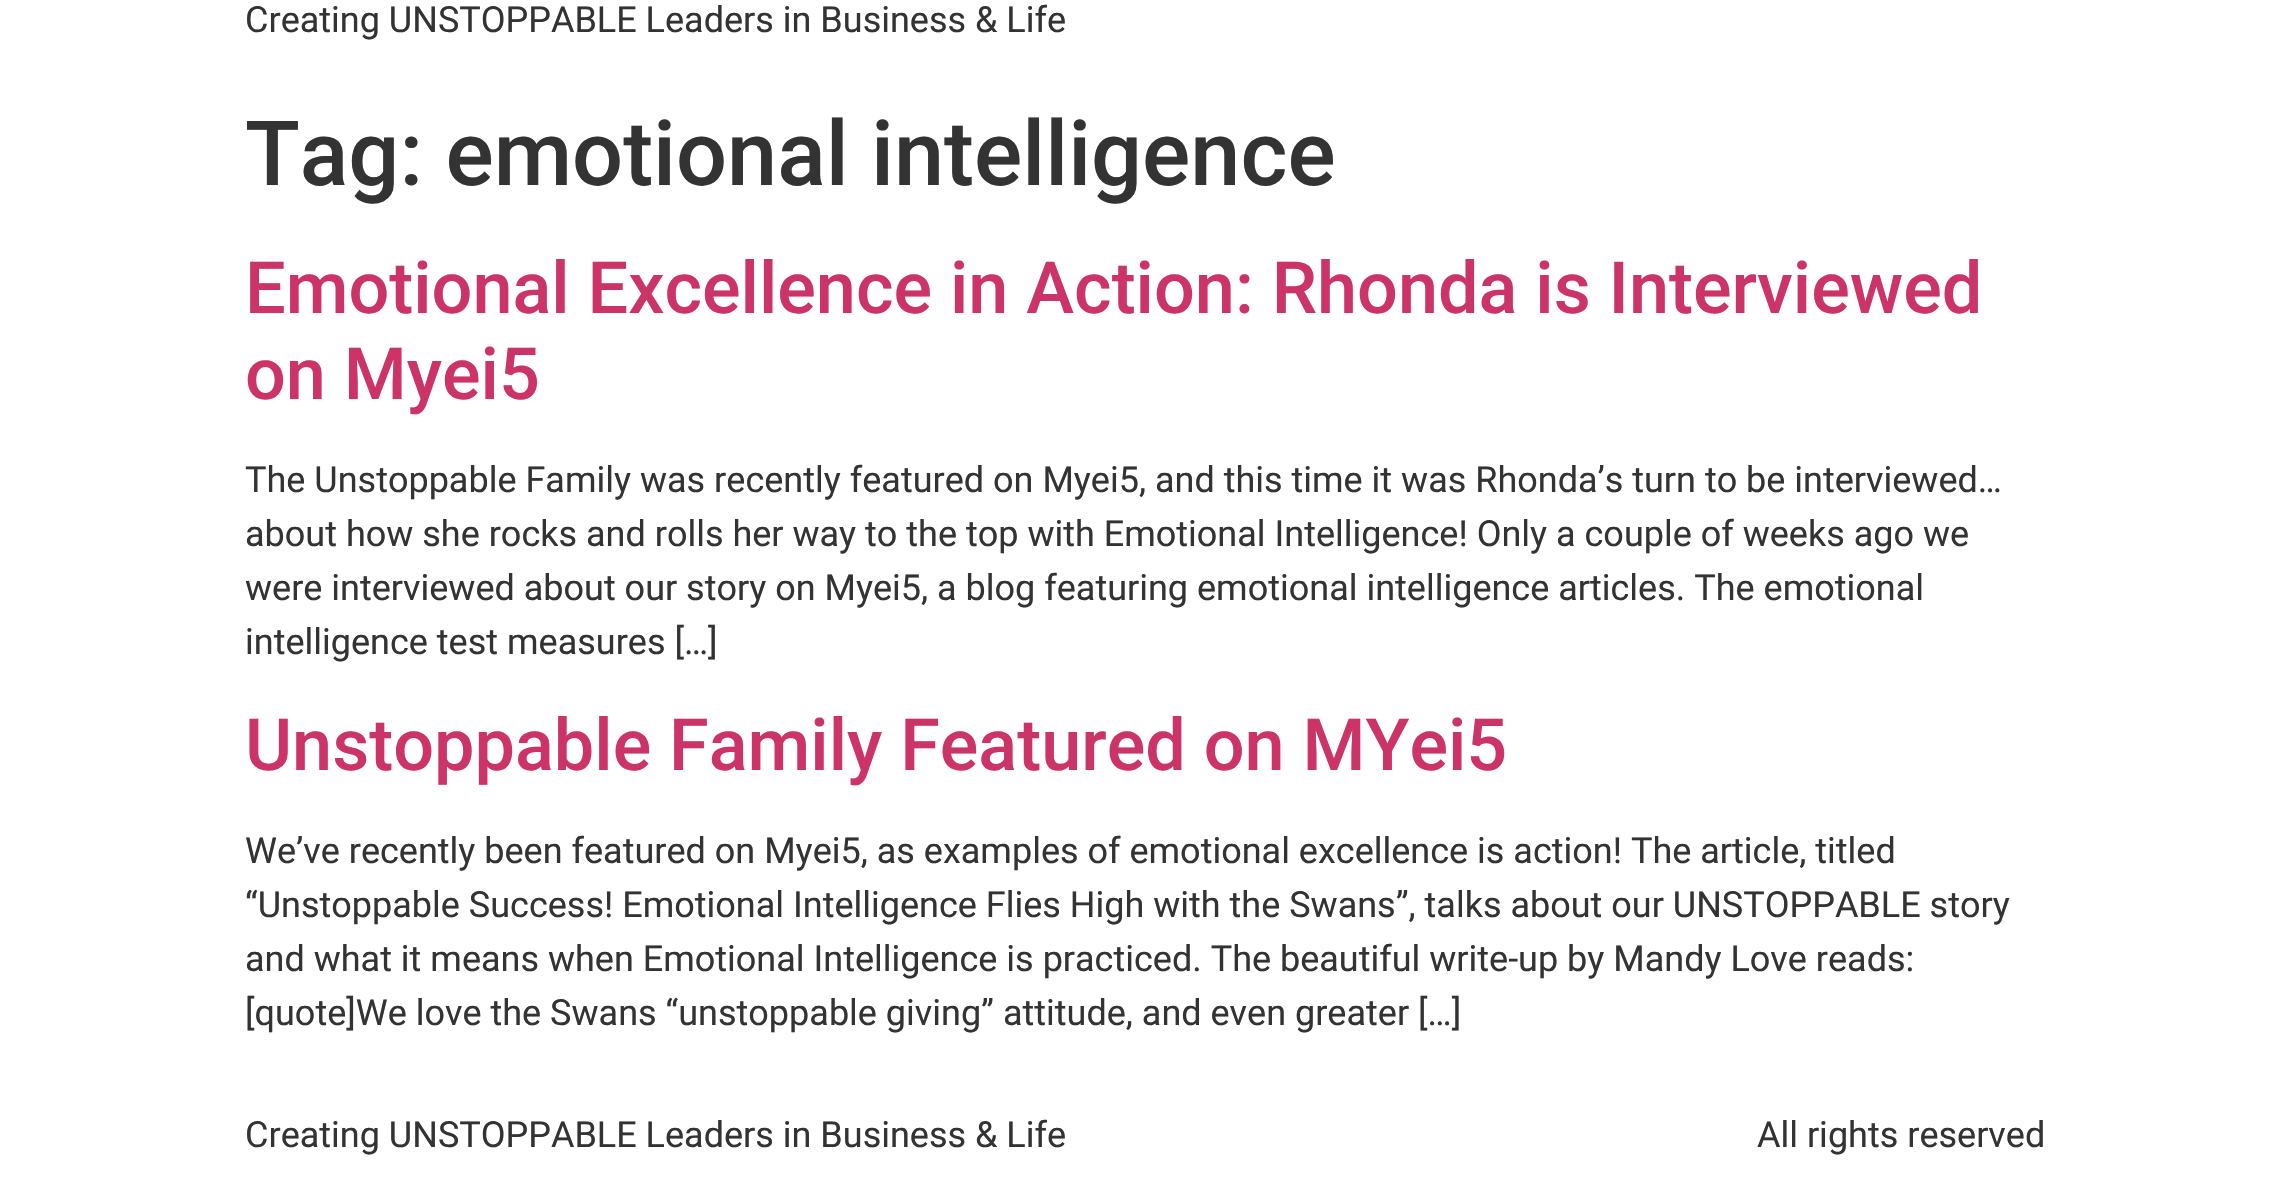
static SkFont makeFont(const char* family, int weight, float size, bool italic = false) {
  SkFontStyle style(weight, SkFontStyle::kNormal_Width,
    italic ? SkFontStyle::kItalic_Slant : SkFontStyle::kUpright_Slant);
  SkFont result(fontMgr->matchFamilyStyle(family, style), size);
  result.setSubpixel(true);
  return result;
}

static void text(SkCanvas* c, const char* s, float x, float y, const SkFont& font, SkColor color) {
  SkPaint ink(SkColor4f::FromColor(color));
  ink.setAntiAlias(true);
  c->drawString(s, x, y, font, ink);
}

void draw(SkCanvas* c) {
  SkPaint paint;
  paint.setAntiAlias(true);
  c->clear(0xffffffff);
  SkFont face1 = makeFont("Roboto", 400, 36);
  text(c, "Creating UNSTOPPABLE Leaders in Business & Life", 245, 32, face1, 0xff333333);
  SkFont face2 = makeFont("Roboto", 500, 90);
  text(c, "Tag: emotional intelligence", 245, 185, face2, 0xff333333);
  SkFont face3 = makeFont("Roboto", 500, 72);
  text(c, "Emotional Excellence in Action: Rhonda is Interviewed", 245, 313, face3, 0xffcc3366);
  text(c, "on Myei5", 245, 399, face3, 0xffcc3366);
  text(c, "The Unstoppable Family was recently featured on Myei5, and this time it was Rhonda’s turn to be interviewed…", 245, 492, face1, 0xff333333);
  text(c, "about how she rocks and rolls her way to the top with Emotional Intelligence! Only a couple of weeks ago we", 245, 546, face1, 0xff333333);
  text(c, "were interviewed about our story on Myei5, a blog featuring emotional intelligence articles. The emotional", 245, 600, face1, 0xff333333);
  text(c, "intelligence test measures […]", 245, 654, face1, 0xff333333);
  text(c, "Unstoppable Family Featured on MYei5", 245, 770, face3, 0xffcc3366);
  text(c, "We’ve recently been featured on Myei5, as examples of emotional excellence is action! The article, titled", 245, 863, face1, 0xff333333);
  text(c, "“Unstoppable Success! Emotional Intelligence Flies High with the Swans”, talks about our UNSTOPPABLE story", 245, 917, face1, 0xff333333);
  text(c, "and what it means when Emotional Intelligence is practiced. The beautiful write-up by Mandy Love reads:", 245, 971, face1, 0xff333333);
  text(c, "[quote]We love the Swans “unstoppable giving” attitude, and even greater […]", 245, 1025, face1, 0xff333333);
  text(c, "Creating UNSTOPPABLE Leaders in Business & Life", 245, 1147, face1, 0xff333333);
  text(c, "All rights reserved", 1757, 1147, face1, 0xff333333);
}
